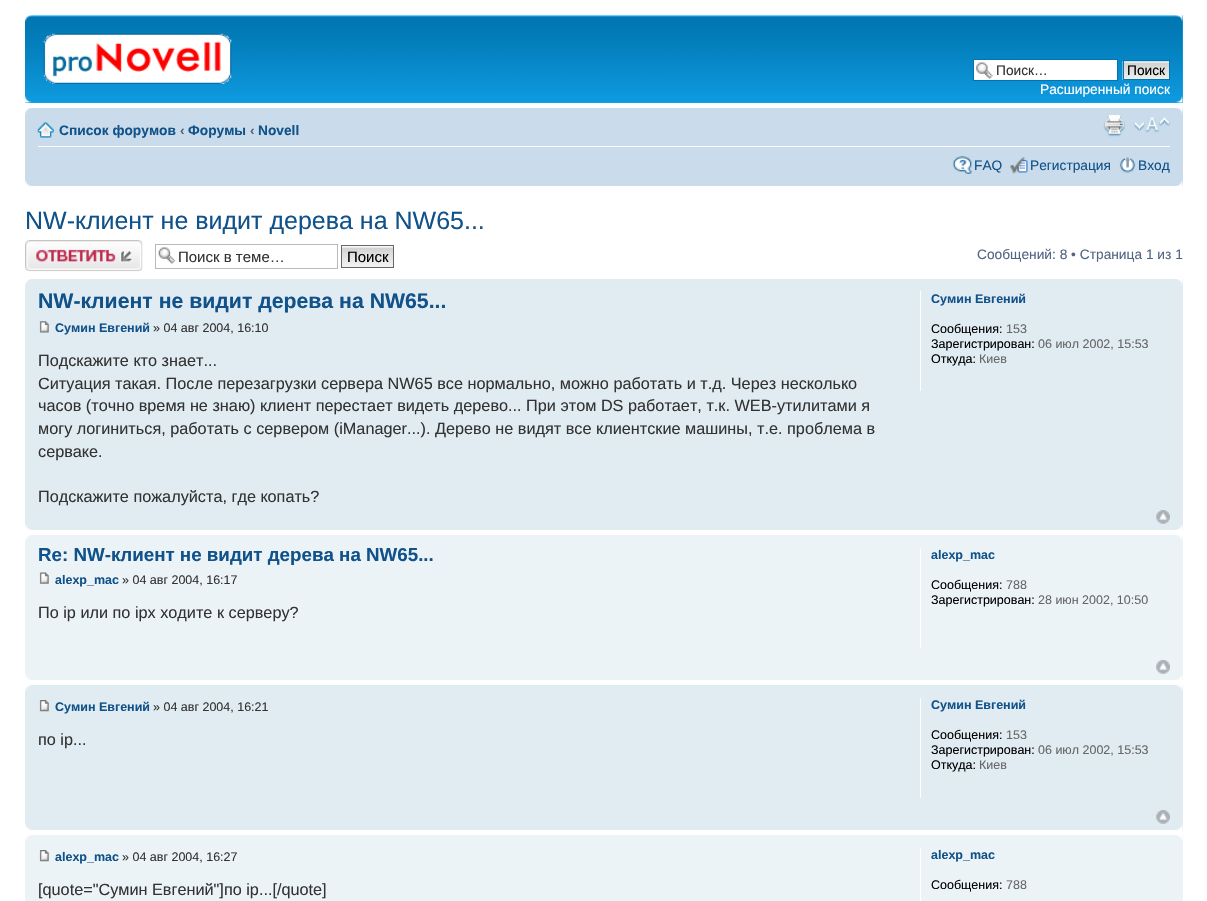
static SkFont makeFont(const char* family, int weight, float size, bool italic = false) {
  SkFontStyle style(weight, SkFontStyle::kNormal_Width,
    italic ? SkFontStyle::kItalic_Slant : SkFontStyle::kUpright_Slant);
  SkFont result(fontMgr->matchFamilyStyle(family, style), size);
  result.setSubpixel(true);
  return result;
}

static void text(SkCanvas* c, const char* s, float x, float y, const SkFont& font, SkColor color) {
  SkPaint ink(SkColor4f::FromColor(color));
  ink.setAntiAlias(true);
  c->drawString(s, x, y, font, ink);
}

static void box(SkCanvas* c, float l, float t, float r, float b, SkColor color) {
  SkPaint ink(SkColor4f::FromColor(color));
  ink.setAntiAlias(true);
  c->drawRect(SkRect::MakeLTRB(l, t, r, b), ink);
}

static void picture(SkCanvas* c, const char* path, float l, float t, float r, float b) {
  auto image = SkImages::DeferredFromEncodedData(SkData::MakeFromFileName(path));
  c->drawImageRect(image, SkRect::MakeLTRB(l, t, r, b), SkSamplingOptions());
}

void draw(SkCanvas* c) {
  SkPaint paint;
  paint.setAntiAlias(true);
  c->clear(0xffffffff);
  box(c, 25, 15, 1183, 103, 0xff12a3eb);
  picture(c, "img_01.png", 25, 15, 1183, 103);
  picture(c, "img_02.png", 25, 15, 32, 22);
  picture(c, "img_03.png", 1176, 15, 1183, 22);
  picture(c, "img_04.png", 43, 33, 232, 84);
  box(c, 974, 60, 1117, 80, 0xffffffff);
  picture(c, "img_05.png", 976, 62, 993, 79);
  paint.setStyle(SkPaint::kStroke_Style);
  paint.setStrokeWidth(1);
  paint.setColor(0xff0075b0);
  c->drawRect(SkRect::MakeLTRB(973.5f, 59.5f, 1117.5f, 80.5f), paint);
  SkFont face1 = makeFont("Liberation Sans", 400, 13.75f);
  text(c, "Поиск…", 996, 75, face1, 0xff333333);
  picture(c, "img_06.png", 1122, 61, 1169, 80);
  c->drawRect(SkRect::MakeLTRB(1123.5f, 60.5f, 1169.5f, 79.5f), paint);
  text(c, "Поиск", 1127, 75, face1, 0xff000000);
  text(c, "Расширенный поиск", 1040, 94, face1, 0xffffffff);
  picture(c, "img_07.png", 25, 96, 32, 103);
  picture(c, "img_08.png", 1176, 96, 1183, 103);
  box(c, 25, 108, 1183, 186, 0xffcadceb);
  picture(c, "img_09.png", 25, 108, 31, 114);
  picture(c, "img_10.png", 1176, 108, 1183, 114);
  box(c, 38, 146, 1170, 147, 0xffffffff);
  picture(c, "img_11.png", 37, 122, 54, 138);
  SkFont face2 = makeFont("Liberation Sans", 700, 13.75f);
  text(c, "Список форумов", 59, 135, face2, 0xff105289);
  text(c, "‹", 180, 135, face2, 0xff536482);
  text(c, "Форумы", 188, 135, face2, 0xff105289);
  text(c, "‹", 250, 135, face2, 0xff536482);
  text(c, "Novell", 258, 135, face2, 0xff105289);
  picture(c, "img_12.png", 1103, 115, 1125, 137);
  picture(c, "img_13.png", 1133, 117, 1170, 133);
  picture(c, "img_14.png", 952, 156, 973, 174);
  text(c, "FAQ", 974, 170, face1, 0xff105289);
  picture(c, "img_15.png", 1010, 157, 1028, 174);
  text(c, "Регистрация", 1030, 170, face1, 0xff105289);
  picture(c, "img_16.png", 1119, 157, 1136, 173);
  text(c, "Вход", 1138, 170, face1, 0xff105289);
  picture(c, "img_17.png", 25, 180, 31, 186);
  picture(c, "img_18.png", 1176, 180, 1183, 186);
  SkFont face3 = makeFont("Liberation Sans", 400, 25);
  text(c, "NW-клиент не видит дерева на NW65...", 25, 229, face3, 0xff105289);
  picture(c, "img_19.png", 25, 240, 143, 272);
  picture(c, "img_20.png", 158, 247, 176, 264);
  paint.setColor(0xffb4bac0);
  c->drawRect(SkRect::MakeLTRB(155.5f, 244.5f, 337.5f, 268.5f), paint);
  SkFont face4 = makeFont("Liberation Sans", 400, 15);
  text(c, "Поиск в теме…", 178, 262, face4, 0xff333333);
  box(c, 342, 246, 393, 247, 0xfffafafa);
  picture(c, "img_21.png", 342, 247, 393, 267);
  paint.setColor(0xff666666);
  c->drawRect(SkRect::MakeLTRB(341.5f, 245.5f, 393.5f, 267.5f), paint);
  text(c, "Поиск", 347, 262, face4, 0xff000000);
  text(c, "Сообщений: 8 • Страница 1 из 1", 977, 259, face1, 0xff536482);
  box(c, 25, 279, 1183, 530, 0xffe1ebf2);
  picture(c, "img_22.png", 25, 279, 31, 285);
  picture(c, "img_23.png", 1176, 279, 1183, 285);
  SkFont face5 = makeFont("Liberation Sans", 700, 21.25f);
  text(c, "NW-клиент не видит дерева на NW65...", 38, 308, face5, 0xff105289);
  picture(c, "img_24.png", 39, 321, 49, 333);
  SkFont face6 = makeFont("Liberation Sans", 700, 12.5f);
  text(c, "Сумин Евгений", 55, 332, face6, 0xff105289);
  SkFont face7 = makeFont("Liberation Sans", 400, 12.5f);
  text(c, "» 04 авг 2004, 16:10", 153, 332, face7, 0xff333333);
  SkFont face8 = makeFont("Liberation Sans", 400, 16.25f);
  text(c, "Подскажите кто знает...", 38, 366, face8, 0xff333333);
  text(c, "Ситуация такая. После перезагрузки сервера NW65 все нормально, можно работать и т.д. Через несколько", 38, 389, face8, 0xff333333);
  text(c, "часов (точно время не знаю) клиент перестает видеть дерево... При этом DS работает, т.к. WEB-утилитами я", 38, 411, face8, 0xff333333);
  text(c, "могу логиниться, работать с сервером (iManager...). Дерево не видят все клиентские машины, т.е. проблема в", 38, 434, face8, 0xff333333);
  text(c, "серваке.", 38, 457, face8, 0xff333333);
  text(c, "Подскажите пожалуйста, где копать?", 38, 502, face8, 0xff333333);
  box(c, 920, 291, 921, 391, 0xffffffff);
  text(c, "Сумин Евгений", 931, 303, face6, 0xff105289);
  text(c, "Сообщения:", 931, 333, face7, 0xff000000);
  text(c, "153", 1006, 333, face7, 0xff666666);
  text(c, "Зарегистрирован:", 931, 348, face7, 0xff000000);
  text(c, "06 июл 2002, 15:53", 1038, 348, face7, 0xff666666);
  text(c, "Откуда:", 931, 363, face7, 0xff000000);
  text(c, "Киев", 979, 363, face7, 0xff666666);
  picture(c, "img_25.png", 1156, 510, 1170, 524);
  picture(c, "img_26.png", 25, 524, 31, 530);
  picture(c, "img_27.png", 1176, 524, 1183, 530);
  box(c, 25, 535, 1183, 680, 0xffecf3f7);
  picture(c, "img_28.png", 25, 535, 31, 541);
  picture(c, "img_29.png", 1177, 535, 1183, 540);
  SkFont face9 = makeFont("Liberation Sans", 700, 18.75f);
  text(c, "Re: NW-клиент не видит дерева на NW65...", 38, 561, face9, 0xff105289);
  picture(c, "img_30.png", 39, 572, 49, 584);
  text(c, "alexp_mac", 55, 584, face6, 0xff105289);
  text(c, "» 04 авг 2004, 16:17", 122, 584, face7, 0xff333333);
  text(c, "По ip или по ipx ходите к серверу?", 38, 618, face8, 0xff333333);
  box(c, 920, 548, 921, 648, 0xffffffff);
  text(c, "alexp_mac", 931, 559, face6, 0xff105289);
  text(c, "Сообщения:", 931, 589, face7, 0xff000000);
  text(c, "788", 1006, 589, face7, 0xff666666);
  text(c, "Зарегистрирован:", 931, 604, face7, 0xff000000);
  text(c, "28 июн 2002, 10:50", 1038, 604, face7, 0xff666666);
  picture(c, "img_31.png", 1156, 660, 1170, 674);
  picture(c, "img_32.png", 25, 674, 31, 680);
  picture(c, "img_33.png", 1177, 675, 1183, 680);
  box(c, 25, 685, 1183, 830, 0xffe1ebf2);
  picture(c, "img_34.png", 25, 685, 31, 691);
  picture(c, "img_35.png", 1176, 685, 1183, 691);
  picture(c, "img_36.png", 39, 700, 49, 712);
  text(c, "Сумин Евгений", 55, 711, face6, 0xff105289);
  text(c, "» 04 авг 2004, 16:21", 153, 711, face7, 0xff333333);
  text(c, "по ip...", 38, 745, face8, 0xff333333);
  box(c, 920, 698, 921, 798, 0xffffffff);
  text(c, "Сумин Евгений", 931, 709, face6, 0xff105289);
  text(c, "Сообщения:", 931, 739, face7, 0xff000000);
  text(c, "153", 1006, 739, face7, 0xff666666);
  text(c, "Зарегистрирован:", 931, 754, face7, 0xff000000);
  text(c, "06 июл 2002, 15:53", 1038, 754, face7, 0xff666666);
  text(c, "Откуда:", 931, 769, face7, 0xff000000);
  text(c, "Киев", 979, 769, face7, 0xff666666);
  picture(c, "img_25.png", 1156, 810, 1170, 824);
  picture(c, "img_26.png", 25, 824, 31, 830);
  picture(c, "img_27.png", 1176, 824, 1183, 830);
  box(c, 25, 835, 1183, 901, 0xffecf3f7);
  picture(c, "img_28.png", 25, 835, 31, 841);
  picture(c, "img_29.png", 1177, 835, 1183, 840);
  picture(c, "img_37.png", 39, 850, 49, 862);
  text(c, "alexp_mac", 55, 861, face6, 0xff105289);
  text(c, "» 04 авг 2004, 16:27", 122, 861, face7, 0xff333333);
  text(c, "[quote=\"Сумин Евгений\"]по ip...[/quote]", 38, 895, face8, 0xff333333);
  box(c, 920, 848, 921, 901, 0xffffffff);
  text(c, "alexp_mac", 931, 859, face6, 0xff105289);
  text(c, "Сообщения:", 931, 889, face7, 0xff000000);
  text(c, "788", 1006, 889, face7, 0xff666666);
}
